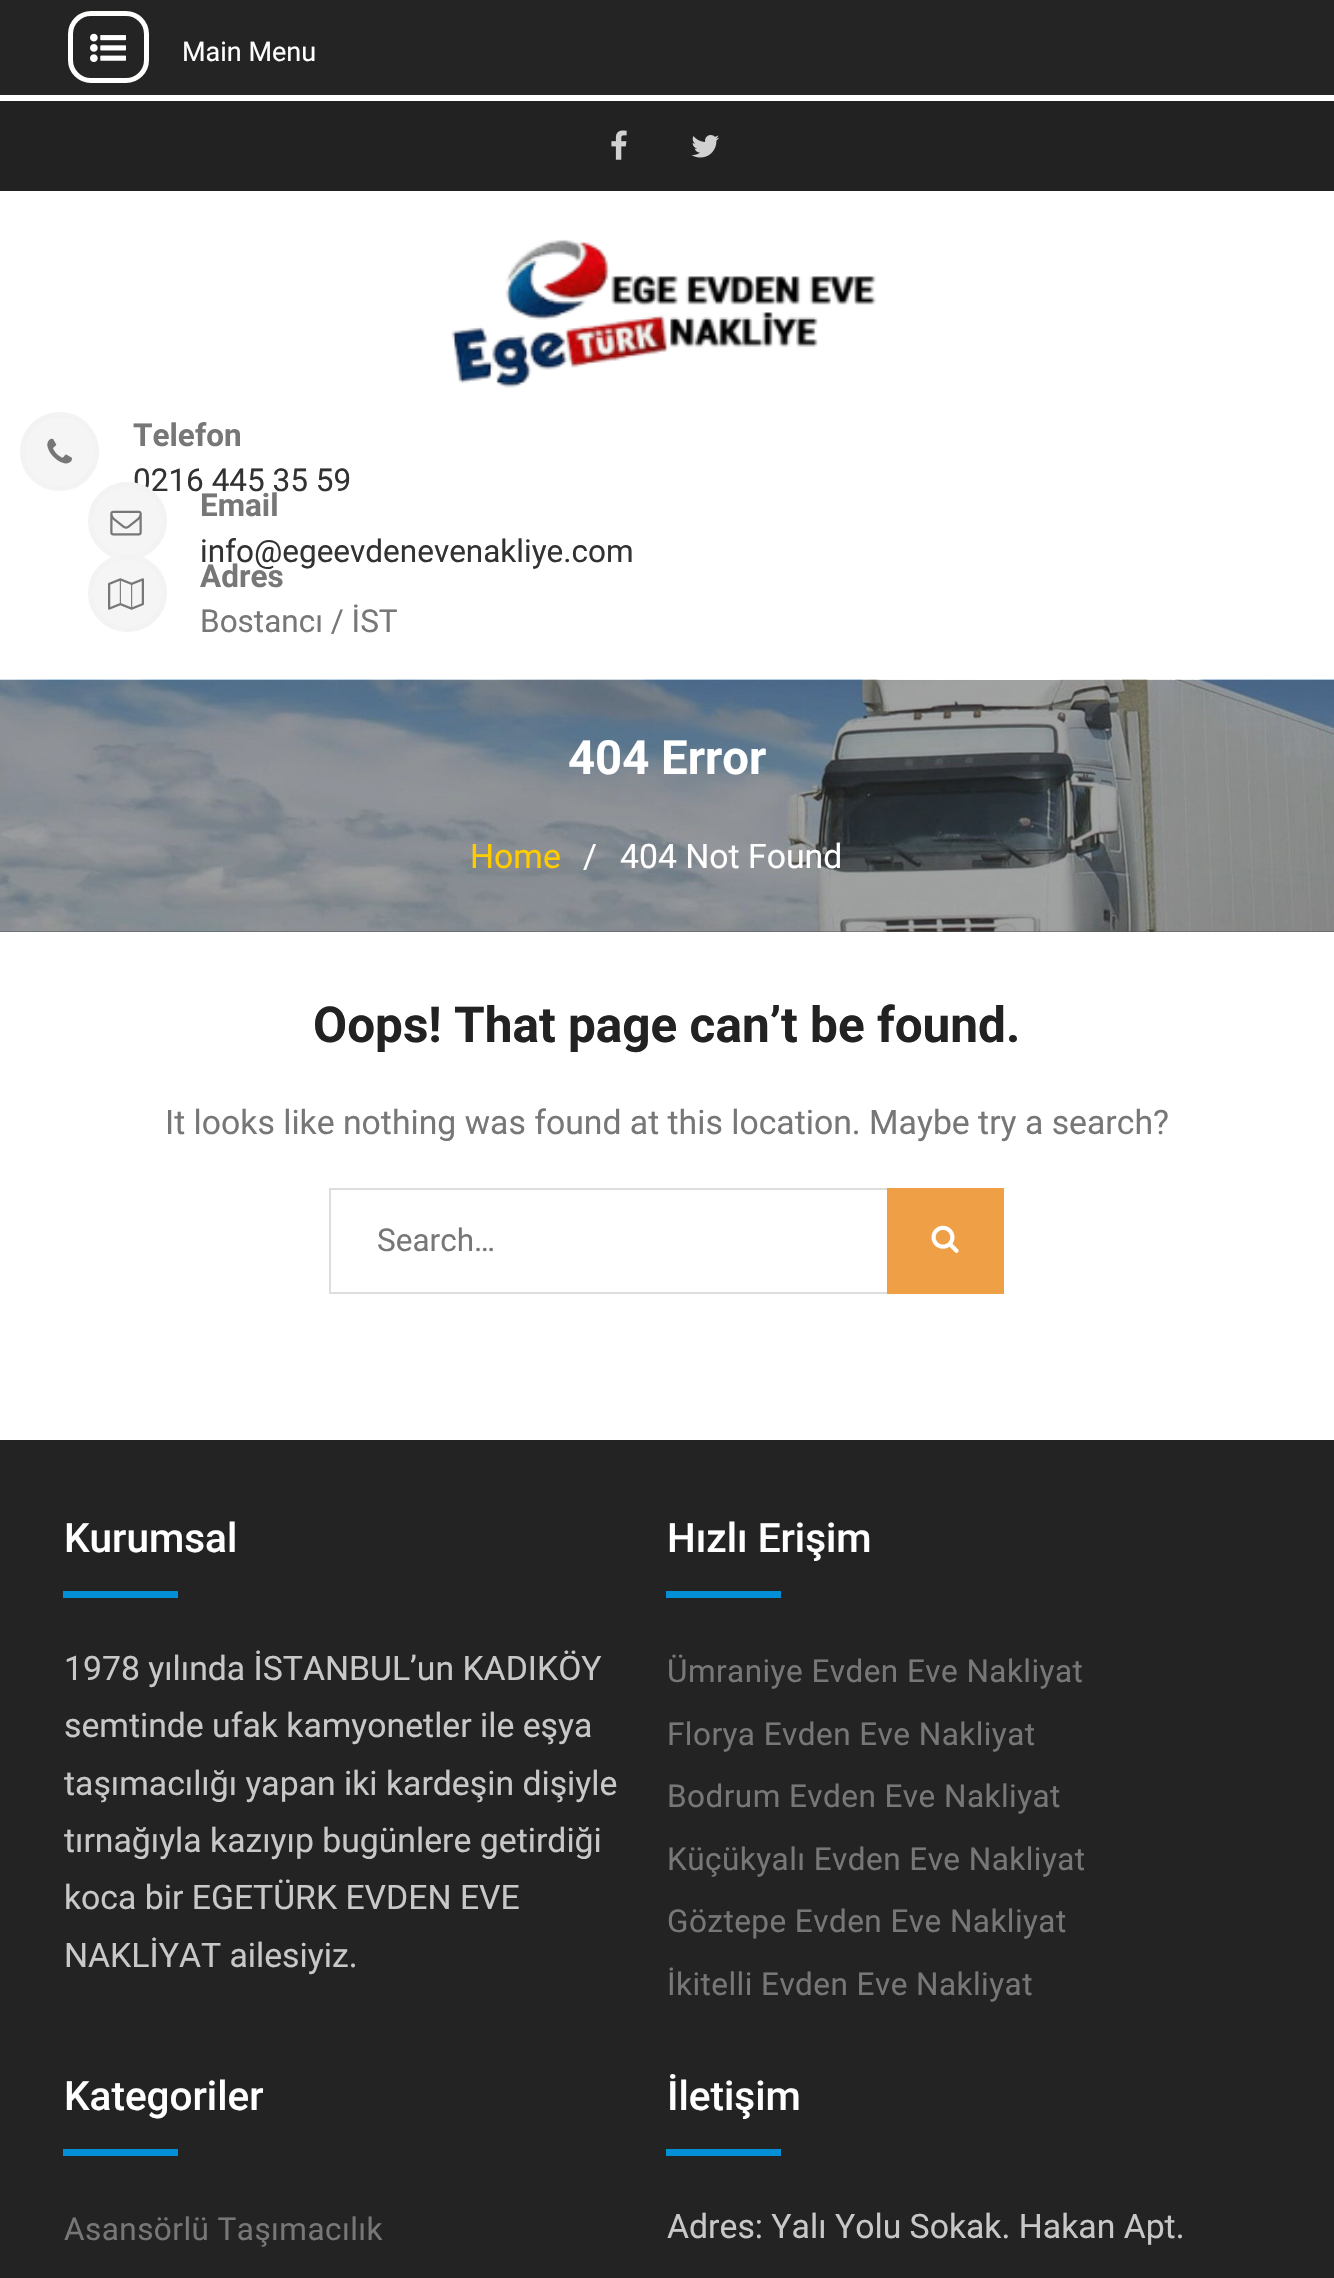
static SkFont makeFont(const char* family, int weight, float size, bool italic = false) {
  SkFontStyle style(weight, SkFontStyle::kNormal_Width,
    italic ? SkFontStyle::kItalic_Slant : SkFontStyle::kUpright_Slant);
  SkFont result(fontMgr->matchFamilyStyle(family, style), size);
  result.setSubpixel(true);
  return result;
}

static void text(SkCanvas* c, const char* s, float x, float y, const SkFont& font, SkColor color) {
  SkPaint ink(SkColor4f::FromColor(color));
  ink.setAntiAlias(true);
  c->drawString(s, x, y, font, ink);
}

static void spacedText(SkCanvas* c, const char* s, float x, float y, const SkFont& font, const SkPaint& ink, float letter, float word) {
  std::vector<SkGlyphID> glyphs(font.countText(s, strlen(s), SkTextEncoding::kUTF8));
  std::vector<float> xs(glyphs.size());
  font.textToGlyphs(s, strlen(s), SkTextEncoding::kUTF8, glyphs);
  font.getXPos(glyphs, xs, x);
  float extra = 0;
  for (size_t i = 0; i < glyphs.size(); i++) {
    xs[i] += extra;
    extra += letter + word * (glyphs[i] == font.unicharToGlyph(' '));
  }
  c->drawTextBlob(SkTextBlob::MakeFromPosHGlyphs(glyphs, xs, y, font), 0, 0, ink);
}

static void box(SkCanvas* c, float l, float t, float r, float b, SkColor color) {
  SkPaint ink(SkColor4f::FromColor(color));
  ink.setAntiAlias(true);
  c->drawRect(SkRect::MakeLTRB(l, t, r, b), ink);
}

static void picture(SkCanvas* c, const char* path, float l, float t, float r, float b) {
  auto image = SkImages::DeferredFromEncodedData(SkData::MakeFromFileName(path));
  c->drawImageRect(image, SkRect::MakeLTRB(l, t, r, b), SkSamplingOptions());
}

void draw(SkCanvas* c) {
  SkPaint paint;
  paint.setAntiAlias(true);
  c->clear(0xffffffff);
  box(c, 0, 0, 1334, 95, 0xff242424);
  paint.setStyle(SkPaint::kStroke_Style);
  paint.setStrokeWidth(5);
  paint.setColor(0xfffffffe);
  c->drawRoundRect(SkRect::MakeLTRB(70.5f, 13.5f, 146.5f, 80.5f), 20.5f, 20.5f, paint);
  picture(c, "img_01.png", 90, 33, 126, 62);
  SkFont face1 = makeFont("Roboto", 400, 27);
  text(c, "Main Menu", 182, 61, face1, 0xffffffff);
  box(c, 0, 101, 1334, 191, 0xff222222);
  picture(c, "img_02.png", 611, 130, 627, 160);
  picture(c, "img_03.png", 691, 135, 719, 158);
  picture(c, "img_04.png", 451, 239, 876, 388);
  paint.setStyle(SkPaint::kFill_Style);
  paint.setColor(0xfff5f5f5);
  c->drawCircle(59.5f, 451.5f, 37, paint);
  paint.setStyle(SkPaint::kStroke_Style);
  paint.setColor(0xfff3f3f3);
  c->drawCircle(59.5f, 451.5f, 37, paint);
  picture(c, "img_05.png", 47, 438, 72, 464);
  SkFont face2 = makeFont("Roboto", 700, 31.5f);
  text(c, "Telefon", 133, 446, face2, 0xff777777);
  SkFont face3 = makeFont("Roboto", 400, 31.5f);
  text(c, "0216 445 35 59", 133, 491, face3, 0xff323232);
  paint.setStyle(SkPaint::kFill_Style);
  paint.setColor(0xfff5f5f5);
  c->drawRoundRect(SkRect::MakeLTRB(90.5f, 484.5f, 164.5f, 557.5f), 36.5f, 36.5f, paint);
  paint.setStyle(SkPaint::kStroke_Style);
  paint.setColor(0xfff3f3f3);
  c->drawRoundRect(SkRect::MakeLTRB(90.5f, 484.5f, 164.5f, 557.5f), 36.5f, 36.5f, paint);
  picture(c, "img_06.png", 110, 510, 142, 536);
  text(c, "Email", 200, 516, face2, 0xff777777);
  text(c, "info@egeevdenevenakliye.com", 200, 562, face3, 0xff323232);
  paint.setStyle(SkPaint::kFill_Style);
  paint.setColor(0xfff5f5f5);
  c->drawRoundRect(SkRect::MakeLTRB(90.5f, 556.5f, 164.5f, 629.5f), 36.5f, 36.5f, paint);
  paint.setStyle(SkPaint::kStroke_Style);
  paint.setColor(0xfff3f3f3);
  c->drawRoundRect(SkRect::MakeLTRB(90.5f, 556.5f, 164.5f, 629.5f), 36.5f, 36.5f, paint);
  picture(c, "img_07.png", 108, 578, 144, 610);
  text(c, "Adres", 200, 587, face2, 0xff777777);
  text(c, "Bostancı / İST", 200, 632, face3, 0xff777777);
  box(c, 0, 931, 1334, 932, 0xff555656);
  picture(c, "img_08.png", 0, 679, 1334, 932);
  SkFont face4 = makeFont("Roboto", 700, 47.25f);
  text(c, "404 Error", 568, 774, face4, 0xffffffff);
  SkFont face5 = makeFont("Roboto", 400, 33.75f);
  text(c, "Home", 470, 868, face5, 0xffffcc00);
  text(c, "/", 583, 868, face5, 0xffffffff);
  text(c, "404 Not Found", 620, 868, face5, 0xffffffff);
  SkFont face6 = makeFont("Roboto", 700, 49.5f);
  text(c, "Oops! That page can’t be found.", 313, 1042, face6, 0xff222222);
  text(c, "It looks like nothing was found at this location. Maybe try a search?", 165, 1134, face5, 0xff777777);
  paint.setStrokeWidth(2);
  paint.setColor(0xffdddddd);
  c->drawRect(SkRect::MakeLTRB(330, 1189, 1003, 1293), paint);
  text(c, "Search…", 377, 1251, face3, 0xff777777);
  box(c, 887, 1188, 1004, 1294, 0xffefa046);
  picture(c, "img_09.png", 931, 1225, 959, 1253);
  box(c, 0, 1440, 1334, 2278, 0xff232323);
  SkFont face7 = makeFont("Roboto", 500, 40.5f);
  text(c, "Kurumsal", 64, 1552, face7, 0xffffffff);
  box(c, 63, 1591, 178, 1598, 0xff038fd6);
  text(c, "1978 yılında İSTANBUL’un KADIKÖY", 64, 1680, face5, 0xffc8c8c8);
  text(c, "semtinde ufak kamyonetler ile eşya", 64, 1737, face5, 0xffc8c8c8);
  text(c, "taşımacılığı yapan iki kardeşin dişiyle", 64, 1795, face5, 0xffc8c8c8);
  text(c, "tırnağıyla kazıyıp bugünlere getirdiği", 64, 1852, face5, 0xffc8c8c8);
  text(c, "koca bir EGETÜRK EVDEN EVE", 64, 1909, face5, 0xffc8c8c8);
  text(c, "NAKLİYAT ailesiyiz.", 64, 1967, face5, 0xffc8c8c8);
  text(c, "Hızlı Erişim", 667, 1552, face7, 0xffffffff);
  box(c, 666, 1591, 781, 1598, 0xff038fd6);
  paint.setStyle(SkPaint::kFill_Style);
  paint.setColor(0xff777777);
  spacedText(c, "Ümraniye Evden Eve Nakliyat", 667, 1682, face3, paint, 0.45f, 0);
  spacedText(c, "Florya Evden Eve Nakliyat", 667, 1745, face3, paint, 0.45f, 0);
  spacedText(c, "Bodrum Evden Eve Nakliyat", 667, 1807, face3, paint, 0.45f, 0);
  spacedText(c, "Küçükyalı Evden Eve Nakliyat", 667, 1870, face3, paint, 0.45f, 0);
  spacedText(c, "Göztepe Evden Eve Nakliyat", 667, 1932, face3, paint, 0.45f, 0);
  spacedText(c, "İkitelli Evden Eve Nakliyat", 667, 1995, face3, paint, 0.45f, 0);
  text(c, "Kategoriler", 64, 2110, face7, 0xffffffff);
  box(c, 63, 2149, 178, 2156, 0xff038fd6);
  spacedText(c, "Asansörlü Taşımacılık", 64, 2240, face3, paint, 0.45f, 0);
  text(c, "İletişim", 667, 2110, face7, 0xffffffff);
  box(c, 666, 2149, 781, 2156, 0xff038fd6);
  text(c, "Adres: Yalı Yolu Sokak. Hakan Apt.", 667, 2238, face5, 0xffc8c8c8);
}
